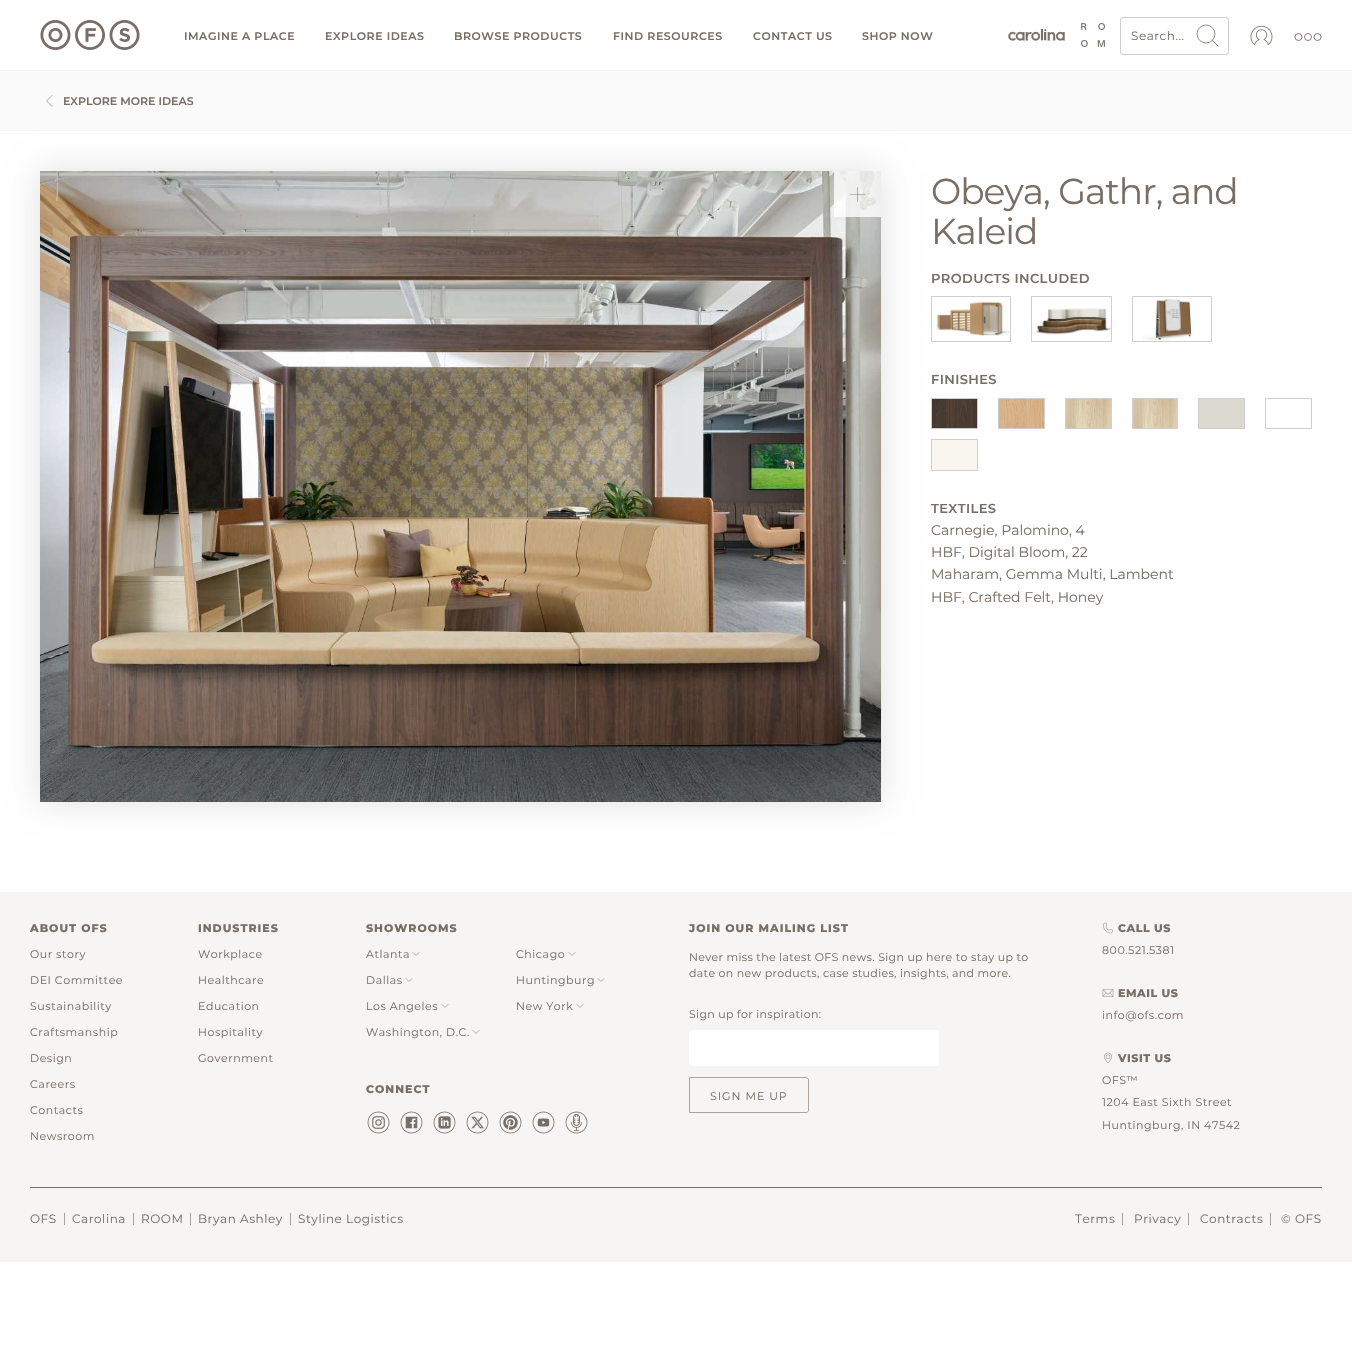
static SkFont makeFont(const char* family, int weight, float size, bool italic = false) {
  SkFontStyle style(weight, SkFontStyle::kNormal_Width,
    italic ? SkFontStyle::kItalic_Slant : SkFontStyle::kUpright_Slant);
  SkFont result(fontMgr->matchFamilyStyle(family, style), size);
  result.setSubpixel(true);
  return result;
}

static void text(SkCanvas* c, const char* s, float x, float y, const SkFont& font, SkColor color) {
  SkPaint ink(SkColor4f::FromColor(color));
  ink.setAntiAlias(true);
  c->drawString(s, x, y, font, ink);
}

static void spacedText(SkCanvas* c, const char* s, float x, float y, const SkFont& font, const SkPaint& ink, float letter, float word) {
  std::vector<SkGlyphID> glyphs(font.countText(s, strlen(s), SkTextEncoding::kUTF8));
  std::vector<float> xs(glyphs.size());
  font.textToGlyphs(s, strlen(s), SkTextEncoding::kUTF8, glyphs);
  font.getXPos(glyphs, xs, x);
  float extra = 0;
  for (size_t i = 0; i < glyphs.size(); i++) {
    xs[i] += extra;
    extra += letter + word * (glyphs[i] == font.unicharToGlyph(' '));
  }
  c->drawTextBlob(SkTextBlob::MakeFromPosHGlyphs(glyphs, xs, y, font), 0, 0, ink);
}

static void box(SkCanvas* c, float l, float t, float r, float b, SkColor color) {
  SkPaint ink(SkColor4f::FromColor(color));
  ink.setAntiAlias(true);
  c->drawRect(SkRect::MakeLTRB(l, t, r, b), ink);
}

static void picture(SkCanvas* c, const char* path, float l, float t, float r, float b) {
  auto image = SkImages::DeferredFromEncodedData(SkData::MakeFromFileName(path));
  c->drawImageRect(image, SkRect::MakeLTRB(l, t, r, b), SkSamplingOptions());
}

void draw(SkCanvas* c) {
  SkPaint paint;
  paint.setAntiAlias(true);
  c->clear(0xffffffff);
  box(c, 0, 70, 1352, 71, 0xfff6f5f4);
  picture(c, "img_01.png", 40, 20, 140, 50);
  SkFont face1 = makeFont("Montserrat", 600, 11);
  paint.setColor(0xff796e65);
  spacedText(c, "IMAGINE A PLACE", 184, 40, face1, paint, 0.55f, 0);
  spacedText(c, "EXPLORE IDEAS", 325, 40, face1, paint, 0.55f, 0);
  spacedText(c, "BROWSE PRODUCTS", 454, 40, face1, paint, 0.55f, 0);
  spacedText(c, "FIND RESOURCES", 613, 40, face1, paint, 0.55f, 0);
  spacedText(c, "CONTACT US", 753, 40, face1, paint, 0.55f, 0);
  spacedText(c, "SHOP NOW", 862, 40, face1, paint, 0.55f, 0);
  picture(c, "img_02.png", 1008, 29, 1065, 41);
  picture(c, "img_03.png", 1081, 23, 1105, 47);
  paint.setStyle(SkPaint::kStroke_Style);
  paint.setStrokeWidth(1);
  paint.setColor(0xffcccccc);
  c->drawRoundRect(SkRect::MakeLTRB(1120.5f, 17.5f, 1228.5f, 54.5f), 2.5f, 2.5f, paint);
  SkFont face2 = makeFont("Montserrat", 400, 12);
  paint.setStyle(SkPaint::kFill_Style);
  paint.setColor(0xff796e65);
  spacedText(c, "Search...", 1131, 40, face2, paint, 0.5f, 0);
  paint.setStyle(SkPaint::kStroke_Style);
  paint.setStrokeWidth(0.8f);
  c->drawCircle(1206, 34, 9, paint);
  paint.setStrokeCap(SkPaint::kRound_Cap);
  c->drawPath(SkPathBuilder().moveTo(1212, 40).lineTo(1218, 46).detach(), paint);
  picture(c, "img_04.png", 1250, 25, 1273, 46);
  paint.setStrokeWidth(0.9f);
  paint.setStrokeCap(SkPaint::kButt_Cap);
  c->drawCircle(1298.5f, 37, 3.5f, paint);
  c->drawCircle(1308, 37, 3.5f, paint);
  c->drawCircle(1317.5f, 37, 3.5f, paint);
  box(c, 0, 71, 1352, 130, 0xfffbfbfb);
  box(c, 0, 130, 1352, 131, 0xfff7f5f3);
  paint.setStrokeWidth(0.6f);
  paint.setStrokeCap(SkPaint::kRound_Cap);
  paint.setStrokeJoin(SkPaint::kRound_Join);
  c->drawPath(SkPathBuilder().moveTo(52, 95.5f).lineTo(46.5f, 101).lineTo(52, 106.5f).detach(), paint);
  text(c, "EXPLORE MORE IDEAS", 63, 105, face1, 0xff796e65);
  paint.setStyle(SkPaint::kFill_Style);
  paint.setColor(0xffe0e0e0);
  paint.setMaskFilter(SkMaskFilter::MakeBlur(kNormal_SkBlurStyle, 15));
  c->drawRect(SkRect::MakeLTRB(40, 171, 881, 802), paint);
  paint.setMaskFilter(nullptr);
  picture(c, "img_05.png", 40, 171, 881, 802);
  box(c, 834, 171, 881, 217, 0xccffffff);
  picture(c, "img_06.png", 850, 187, 865, 202);
  SkFont face3 = makeFont("Montserrat", 400, 36);
  paint.setColor(0xff796e65);
  spacedText(c, "Obeya, Gathr, and", 931, 204, face3, paint, -1, 0);
  spacedText(c, "Kaleid", 931, 244, face3, paint, -1, 0);
  SkFont face4 = makeFont("Montserrat", 600, 13);
  spacedText(c, "PRODUCTS INCLUDED", 931, 283, face4, paint, 0.4f, 0);
  paint.setStyle(SkPaint::kStroke_Style);
  paint.setStrokeWidth(1);
  paint.setStrokeCap(SkPaint::kButt_Cap);
  paint.setStrokeJoin(SkPaint::kMiter_Join);
  paint.setColor(0xffcfcfcf);
  c->drawRect(SkRect::MakeLTRB(931.5f, 296.5f, 1010.5f, 341.5f), paint);
  picture(c, "img_07.png", 936, 301, 1010, 336);
  c->drawRect(SkRect::MakeLTRB(1031.5f, 296.5f, 1111.5f, 341.5f), paint);
  picture(c, "img_08.png", 1035, 308, 1111, 335);
  c->drawRect(SkRect::MakeLTRB(1132.5f, 296.5f, 1211.5f, 341.5f), paint);
  picture(c, "img_09.png", 1142, 299, 1195, 341);
  paint.setStyle(SkPaint::kFill_Style);
  paint.setColor(0xff796e65);
  spacedText(c, "FINISHES", 931, 384, face4, paint, 0.4f, 0);
  paint.setStyle(SkPaint::kStroke_Style);
  paint.setColor(0xffcfcfcf);
  c->drawRect(SkRect::MakeLTRB(931.5f, 398.5f, 977.5f, 428.5f), paint);
  picture(c, "img_10.png", 932, 399, 977, 428);
  c->drawRect(SkRect::MakeLTRB(998.5f, 398.5f, 1044.5f, 428.5f), paint);
  picture(c, "img_11.png", 999, 399, 1044, 428);
  c->drawRect(SkRect::MakeLTRB(1065.5f, 398.5f, 1111.5f, 428.5f), paint);
  picture(c, "img_12.png", 1066, 399, 1111, 428);
  c->drawRect(SkRect::MakeLTRB(1132.5f, 398.5f, 1177.5f, 428.5f), paint);
  picture(c, "img_13.png", 1133, 399, 1177, 428);
  c->drawRect(SkRect::MakeLTRB(1198.5f, 398.5f, 1244.5f, 428.5f), paint);
  box(c, 1199, 399, 1244, 428, 0xffdcd9d0);
  c->drawRect(SkRect::MakeLTRB(1265.5f, 398.5f, 1311.5f, 428.5f), paint);
  c->drawRect(SkRect::MakeLTRB(931.5f, 439.5f, 977.5f, 470.5f), paint);
  picture(c, "img_14.png", 932, 440, 977, 470);
  paint.setStyle(SkPaint::kFill_Style);
  paint.setColor(0xff796e65);
  spacedText(c, "TEXTILES", 931, 513, face4, paint, 0.4f, 0);
  SkFont face5 = makeFont("Montserrat", 400, 14);
  text(c, "Carnegie, Palomino, 4", 931, 535, face5, 0xff796e65);
  text(c, "HBF, Digital Bloom, 22", 931, 557, face5, 0xff796e65);
  text(c, "Maharam, Gemma Multi, Lambent", 931, 579, face5, 0xff796e65);
  text(c, "HBF, Crafted Felt, Honey", 931, 602, face5, 0xff796e65);
  box(c, 0, 892, 1352, 1262, 0xfff7f5f3);
  SkFont face6 = makeFont("Montserrat", 800, 11);
  spacedText(c, "ABOUT OFS", 30, 932, face6, paint, 1, 0);
  SkFont face7 = makeFont("Montserrat", 400, 11);
  spacedText(c, "Our story", 30, 958, face7, paint, 0.55f, 0);
  spacedText(c, "DEI Committee", 30, 984, face7, paint, 0.55f, 0);
  spacedText(c, "Sustainability", 30, 1010, face7, paint, 0.55f, 0);
  spacedText(c, "Craftsmanship", 30, 1036, face7, paint, 0.55f, 0);
  spacedText(c, "Design", 30, 1062, face7, paint, 0.55f, 0);
  spacedText(c, "Careers", 30, 1088, face7, paint, 0.55f, 0);
  spacedText(c, "Contacts", 30, 1114, face7, paint, 0.55f, 0);
  spacedText(c, "Newsroom", 30, 1140, face7, paint, 0.55f, 0);
  spacedText(c, "INDUSTRIES", 198, 932, face6, paint, 1, 0);
  spacedText(c, "Workplace", 198, 958, face7, paint, 0.55f, 0);
  spacedText(c, "Healthcare", 198, 984, face7, paint, 0.55f, 0);
  spacedText(c, "Education", 198, 1010, face7, paint, 0.55f, 0);
  spacedText(c, "Hospitality", 198, 1036, face7, paint, 0.55f, 0);
  spacedText(c, "Government", 198, 1062, face7, paint, 0.55f, 0);
  spacedText(c, "SHOWROOMS", 366, 932, face6, paint, 1, 0);
  spacedText(c, "Atlanta", 366, 958, face7, paint, 0.55f, 0);
  paint.setStyle(SkPaint::kStroke_Style);
  paint.setStrokeWidth(0.9f);
  paint.setStrokeCap(SkPaint::kRound_Cap);
  paint.setColor(0xffb1a192);
  c->drawPath(SkPathBuilder().moveTo(413, 952.5f).lineTo(416, 955.5f).lineTo(419, 952.5f).detach(), paint);
  paint.setStyle(SkPaint::kFill_Style);
  paint.setColor(0xff796e65);
  spacedText(c, "Chicago", 516, 958, face7, paint, 0.55f, 0);
  paint.setStyle(SkPaint::kStroke_Style);
  paint.setColor(0xffb1a192);
  c->drawPath(SkPathBuilder().moveTo(569, 952.5f).lineTo(572, 955.5f).lineTo(575, 952.5f).detach(), paint);
  paint.setStyle(SkPaint::kFill_Style);
  paint.setColor(0xff796e65);
  spacedText(c, "Dallas", 366, 984, face7, paint, 0.55f, 0);
  paint.setStyle(SkPaint::kStroke_Style);
  paint.setColor(0xffb1a192);
  c->drawPath(SkPathBuilder().moveTo(406, 978.5f).lineTo(409, 981.5f).lineTo(412, 978.5f).detach(), paint);
  paint.setStyle(SkPaint::kFill_Style);
  paint.setColor(0xff796e65);
  spacedText(c, "Huntingburg", 516, 984, face7, paint, 0.55f, 0);
  paint.setStyle(SkPaint::kStroke_Style);
  paint.setColor(0xffb1a192);
  c->drawPath(SkPathBuilder().moveTo(598, 978.5f).lineTo(601, 981.5f).lineTo(604, 978.5f).detach(), paint);
  paint.setStyle(SkPaint::kFill_Style);
  paint.setColor(0xff796e65);
  spacedText(c, "Los Angeles", 366, 1010, face7, paint, 0.55f, 0);
  paint.setStyle(SkPaint::kStroke_Style);
  paint.setColor(0xffb1a192);
  c->drawPath(SkPathBuilder().moveTo(442, 1004.5f).lineTo(445, 1007.5f).lineTo(448, 1004.5f).detach(), paint);
  paint.setStyle(SkPaint::kFill_Style);
  paint.setColor(0xff796e65);
  spacedText(c, "New York", 516, 1010, face7, paint, 0.55f, 0);
  paint.setStyle(SkPaint::kStroke_Style);
  paint.setColor(0xffb1a192);
  c->drawPath(SkPathBuilder().moveTo(577, 1004.5f).lineTo(580, 1007.5f).lineTo(583, 1004.5f).detach(), paint);
  paint.setStyle(SkPaint::kFill_Style);
  paint.setColor(0xff796e65);
  spacedText(c, "Washington, D.C.", 366, 1036, face7, paint, 0.55f, 0);
  paint.setStyle(SkPaint::kStroke_Style);
  paint.setColor(0xffb1a192);
  c->drawPath(SkPathBuilder().moveTo(473, 1030.5f).lineTo(476, 1033.5f).lineTo(479, 1030.5f).detach(), paint);
  paint.setStyle(SkPaint::kFill_Style);
  paint.setColor(0xff796e65);
  spacedText(c, "CONNECT", 366, 1093, face6, paint, 1, 0);
  picture(c, "img_15.png", 367, 1111, 390, 1134);
  picture(c, "img_16.png", 400, 1111, 423, 1134);
  picture(c, "img_17.png", 433, 1111, 456, 1134);
  picture(c, "img_18.png", 466, 1111, 489, 1134);
  picture(c, "img_19.png", 499, 1111, 522, 1134);
  picture(c, "img_20.png", 532, 1111, 555, 1134);
  picture(c, "img_21.png", 565, 1111, 588, 1134);
  spacedText(c, "JOIN OUR MAILING LIST", 689, 932, face6, paint, 1, 0);
  spacedText(c, "Never miss the latest OFS news. Sign up here to stay up to", 689, 961, face7, paint, 0.33f, 0);
  spacedText(c, "date on new products, case studies, insights, and more.", 689, 977, face7, paint, 0.33f, 0);
  spacedText(c, "Sign up for inspiration:", 689, 1018, face7, paint, 0.33f, 0);
  paint.setColor(0xffffffff);
  c->drawPath(SkPathBuilder().moveTo(692, 1030).lineTo(939, 1030).lineTo(939, 1066).lineTo(692, 1066).cubicTo(690.5f, 1066, 689, 1064.5f, 689, 1063).lineTo(689, 1033).cubicTo(689, 1031.5f, 690.5f, 1030, 692, 1030).close().detach(), paint);
  paint.setStyle(SkPaint::kStroke_Style);
  paint.setStrokeWidth(1);
  paint.setStrokeCap(SkPaint::kButt_Cap);
  paint.setColor(0xffaca39a);
  c->drawPath(SkPathBuilder().moveTo(689.5f, 1077.5f).lineTo(806, 1077.5f).cubicTo(807.5f, 1077.5f, 808.5f, 1078.5f, 808.5f, 1080).lineTo(808.5f, 1110).cubicTo(808.5f, 1111.5f, 807.5f, 1112.5f, 806, 1112.5f).lineTo(689.5f, 1112.5f).close().detach(), paint);
  paint.setStyle(SkPaint::kFill_Style);
  paint.setColor(0xff796e65);
  spacedText(c, "SIGN ME UP", 710, 1100, face7, paint, 1, 0);
  picture(c, "img_22.png", 1103, 922, 1113, 934);
  spacedText(c, "CALL US", 1118, 932, face6, paint, 0.55f, 0);
  spacedText(c, "800.521.5381", 1102, 954, face7, paint, 0.55f, 0);
  picture(c, "img_23.png", 1102, 989, 1114, 997);
  spacedText(c, "EMAIL US", 1118, 997, face6, paint, 0.55f, 0);
  spacedText(c, "info@ofs.com", 1102, 1019, face7, paint, 0.55f, 0);
  picture(c, "img_24.png", 1104, 1052, 1112, 1064);
  spacedText(c, "VISIT US", 1118, 1062, face6, paint, 0.55f, 0);
  spacedText(c, "OFS™", 1102, 1084, face7, paint, 0.55f, 0);
  spacedText(c, "1204 East Sixth Street", 1102, 1106, face7, paint, 0.55f, 0);
  spacedText(c, "Huntingburg, IN 47542", 1102, 1129, face7, paint, 0.55f, 0);
  box(c, 30, 1187, 1322, 1188, 0xff796e65);
  box(c, 64, 1213, 65, 1225, 0xffaca39a);
  spacedText(c, "OFS", 30, 1223, face2, paint, 0.55f, 0);
  box(c, 133, 1213, 134, 1225, 0xffaca39a);
  spacedText(c, "Carolina", 72, 1223, face2, paint, 0.55f, 0);
  box(c, 190, 1213, 191, 1225, 0xffaca39a);
  spacedText(c, "ROOM", 141, 1223, face2, paint, 0.55f, 0);
  box(c, 290, 1213, 291, 1225, 0xffaca39a);
  spacedText(c, "Bryan Ashley", 198, 1223, face2, paint, 0.55f, 0);
  spacedText(c, "Styline Logistics", 298, 1223, face2, paint, 0.55f, 0);
  box(c, 1122, 1213, 1123, 1225, 0xffaca39a);
  spacedText(c, "Terms", 1075, 1223, face2, paint, 0.55f, 0);
  box(c, 1188, 1213, 1189, 1225, 0xffaca39a);
  spacedText(c, "Privacy", 1134, 1223, face2, paint, 0.55f, 0);
  box(c, 1270, 1213, 1271, 1225, 0xffaca39a);
  spacedText(c, "Contracts", 1200, 1223, face2, paint, 0.55f, 0);
  spacedText(c, "© OFS", 1281, 1223, face2, paint, 0.55f, 0);
}
